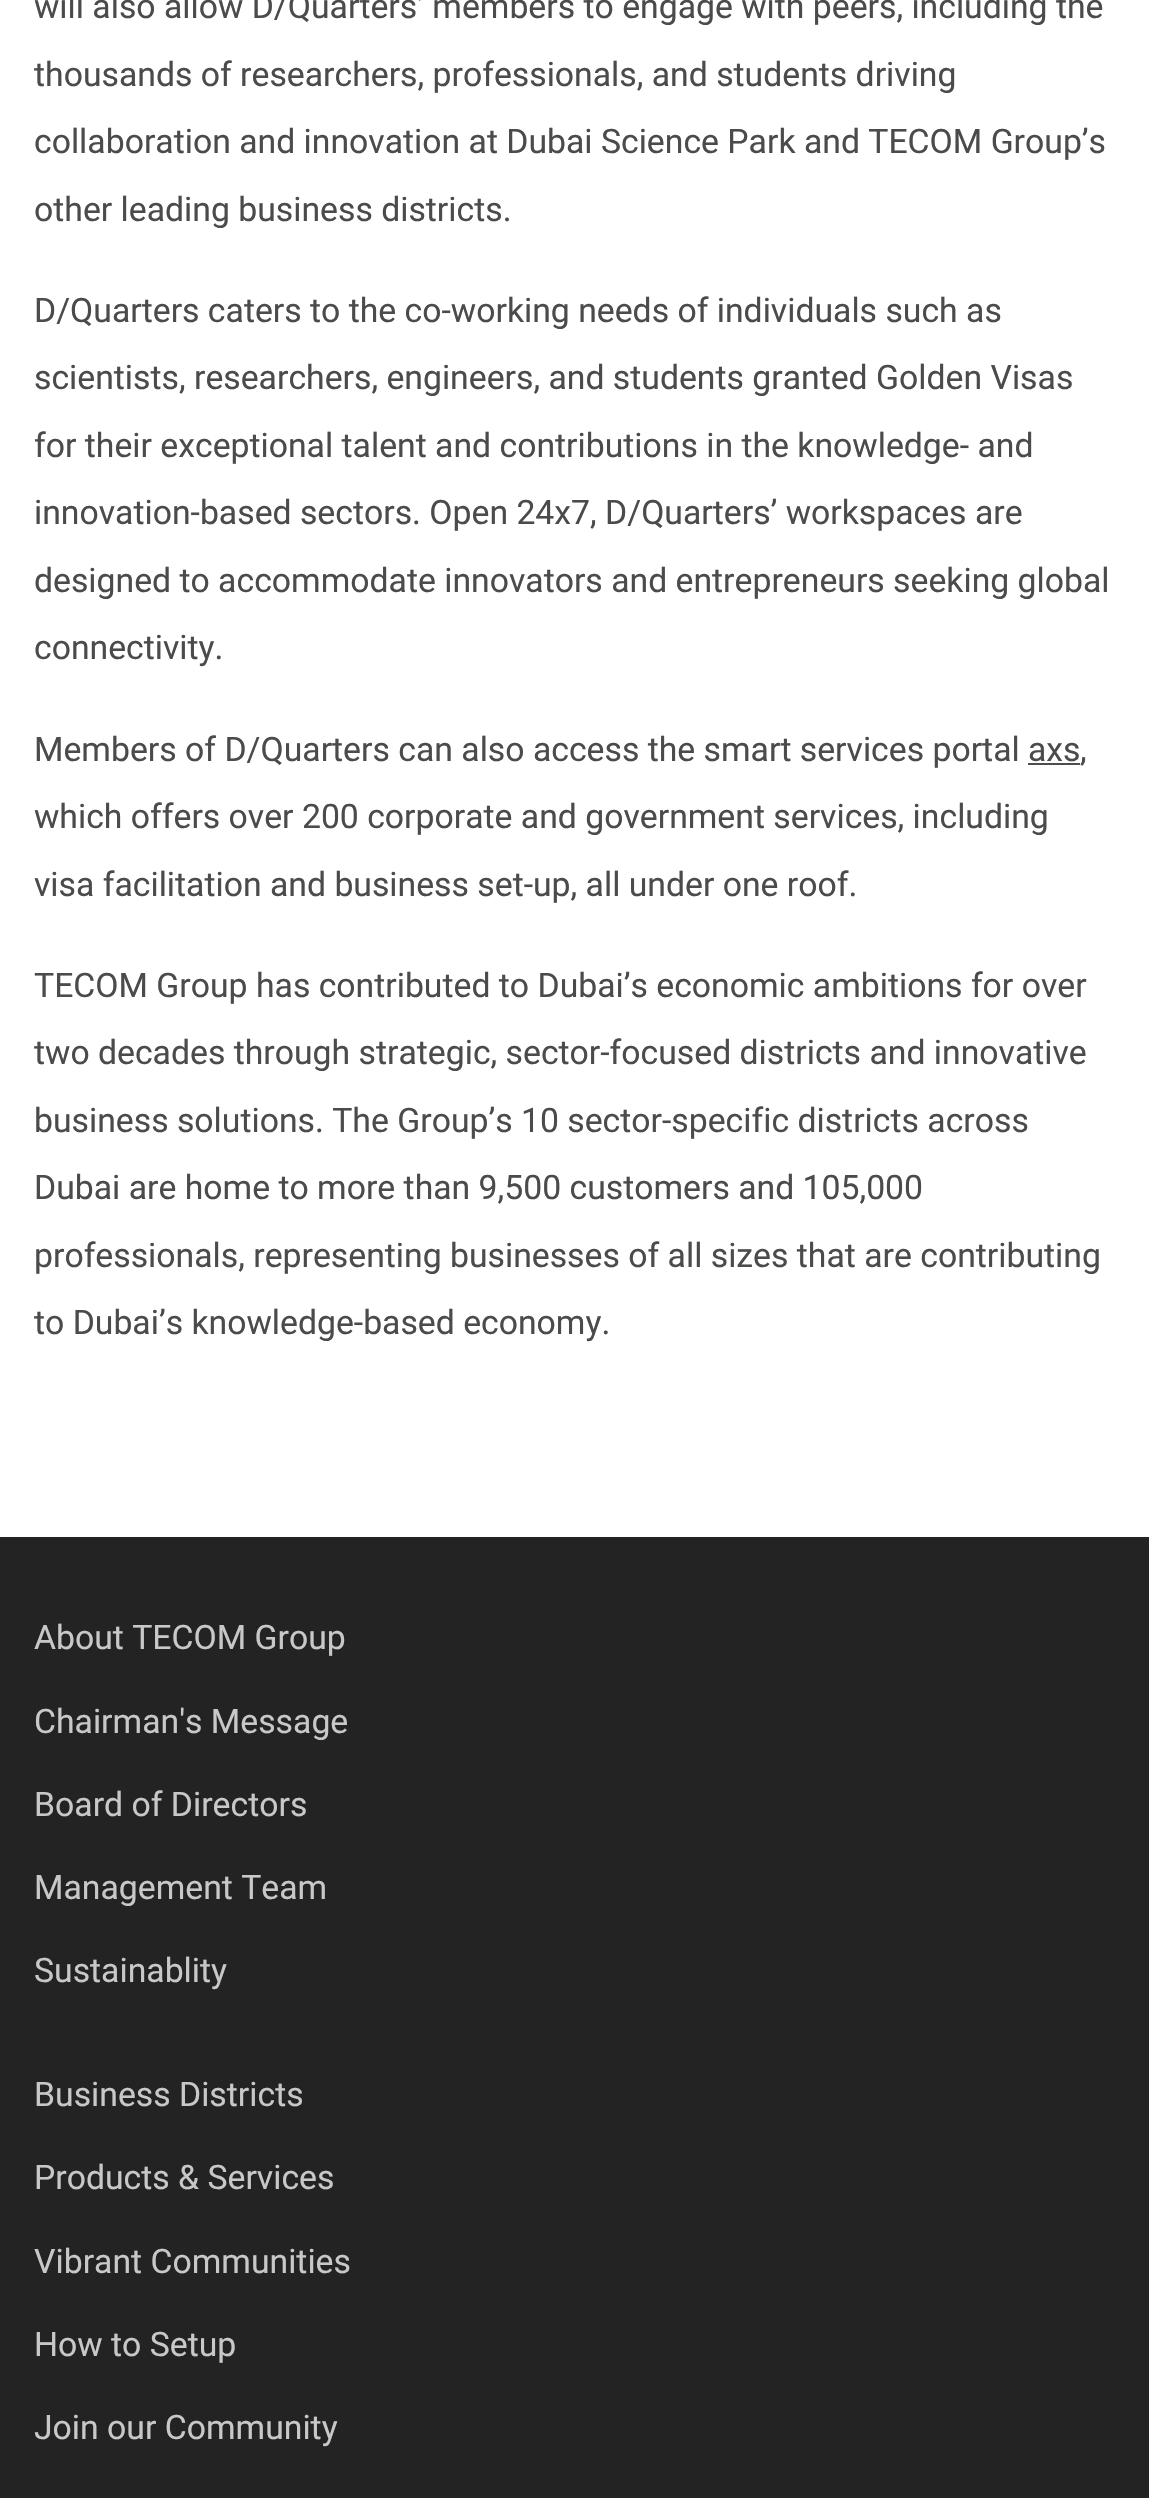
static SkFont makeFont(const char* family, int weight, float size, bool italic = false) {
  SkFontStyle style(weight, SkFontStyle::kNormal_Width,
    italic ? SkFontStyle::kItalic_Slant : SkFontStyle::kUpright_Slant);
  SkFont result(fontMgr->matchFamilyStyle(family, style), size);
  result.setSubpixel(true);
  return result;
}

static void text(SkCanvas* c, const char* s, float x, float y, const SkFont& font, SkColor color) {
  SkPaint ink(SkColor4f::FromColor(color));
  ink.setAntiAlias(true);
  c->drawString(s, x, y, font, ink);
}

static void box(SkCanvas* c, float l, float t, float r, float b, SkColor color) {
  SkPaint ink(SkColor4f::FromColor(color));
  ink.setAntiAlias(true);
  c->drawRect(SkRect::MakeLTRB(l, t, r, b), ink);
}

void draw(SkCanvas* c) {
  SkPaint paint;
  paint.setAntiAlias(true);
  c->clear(0xffffffff);
  SkFont face1 = makeFont("Roboto", 400, 33.75f);
  text(c, "will also allow D/Quarters’ members to engage with peers, including the", 34, 18, face1, 0xff4b4b4b);
  text(c, "thousands of researchers, professionals, and students driving", 34, 86, face1, 0xff4b4b4b);
  text(c, "collaboration and innovation at Dubai Science Park and TECOM Group’s", 34, 153, face1, 0xff4b4b4b);
  text(c, "other leading business districts.", 34, 221, face1, 0xff4b4b4b);
  text(c, "D/Quarters caters to the co-working needs of individuals such as", 34, 322, face1, 0xff4b4b4b);
  text(c, "scientists, researchers, engineers, and students granted Golden Visas", 34, 389, face1, 0xff4b4b4b);
  text(c, "for their exceptional talent and contributions in the knowledge- and", 34, 457, face1, 0xff4b4b4b);
  text(c, "innovation-based sectors. Open 24x7, D/Quarters’ workspaces are", 34, 524, face1, 0xff4b4b4b);
  text(c, "designed to accommodate innovators and entrepreneurs seeking global", 34, 592, face1, 0xff4b4b4b);
  text(c, "connectivity.", 34, 659, face1, 0xff4b4b4b);
  text(c, "Members of D/Quarters can also access the smart services portal", 34, 761, face1, 0xff4b4b4b);
  text(c, "axs", 1028, 761, face1, 0xff4b4b4b);
  box(c, 1028, 763, 1080, 765, 0xff4e4d4d);
  text(c, ",", 1080, 761, face1, 0xff4b4b4b);
  text(c, "which offers over 200 corporate and government services, including", 34, 828, face1, 0xff4b4b4b);
  text(c, "visa facilitation and business set-up, all under one roof.", 34, 896, face1, 0xff4b4b4b);
  text(c, "TECOM Group has contributed to Dubai’s economic ambitions for over", 34, 997, face1, 0xff4b4b4b);
  text(c, "two decades through strategic, sector-focused districts and innovative", 34, 1064, face1, 0xff4b4b4b);
  text(c, "business solutions. The Group’s 10 sector-specific districts across", 34, 1132, face1, 0xff4b4b4b);
  text(c, "Dubai are home to more than 9,500 customers and 105,000", 34, 1199, face1, 0xff4b4b4b);
  text(c, "professionals, representing businesses of all sizes that are contributing", 34, 1267, face1, 0xff4b4b4b);
  text(c, "to Dubai’s knowledge-based economy.", 34, 1334, face1, 0xff4b4b4b);
  box(c, 0, 1537, 1149, 2498, 0xff232323);
  text(c, "About TECOM Group", 34, 1649, face1, 0xffc8c8c8);
  text(c, "Chairman's Message", 34, 1733, face1, 0xffc8c8c8);
  text(c, "Board of Directors", 34, 1816, face1, 0xffc8c8c8);
  text(c, "Management Team", 34, 1899, face1, 0xffc8c8c8);
  text(c, "Sustainablity", 34, 1982, face1, 0xffc8c8c8);
  text(c, "Business Districts", 34, 2106, face1, 0xffc8c8c8);
  text(c, "Products & Services", 34, 2189, face1, 0xffc8c8c8);
  text(c, "Vibrant Communities", 34, 2273, face1, 0xffc8c8c8);
  text(c, "How to Setup", 34, 2356, face1, 0xffc8c8c8);
  text(c, "Join our Community", 34, 2439, face1, 0xffc8c8c8);
}
